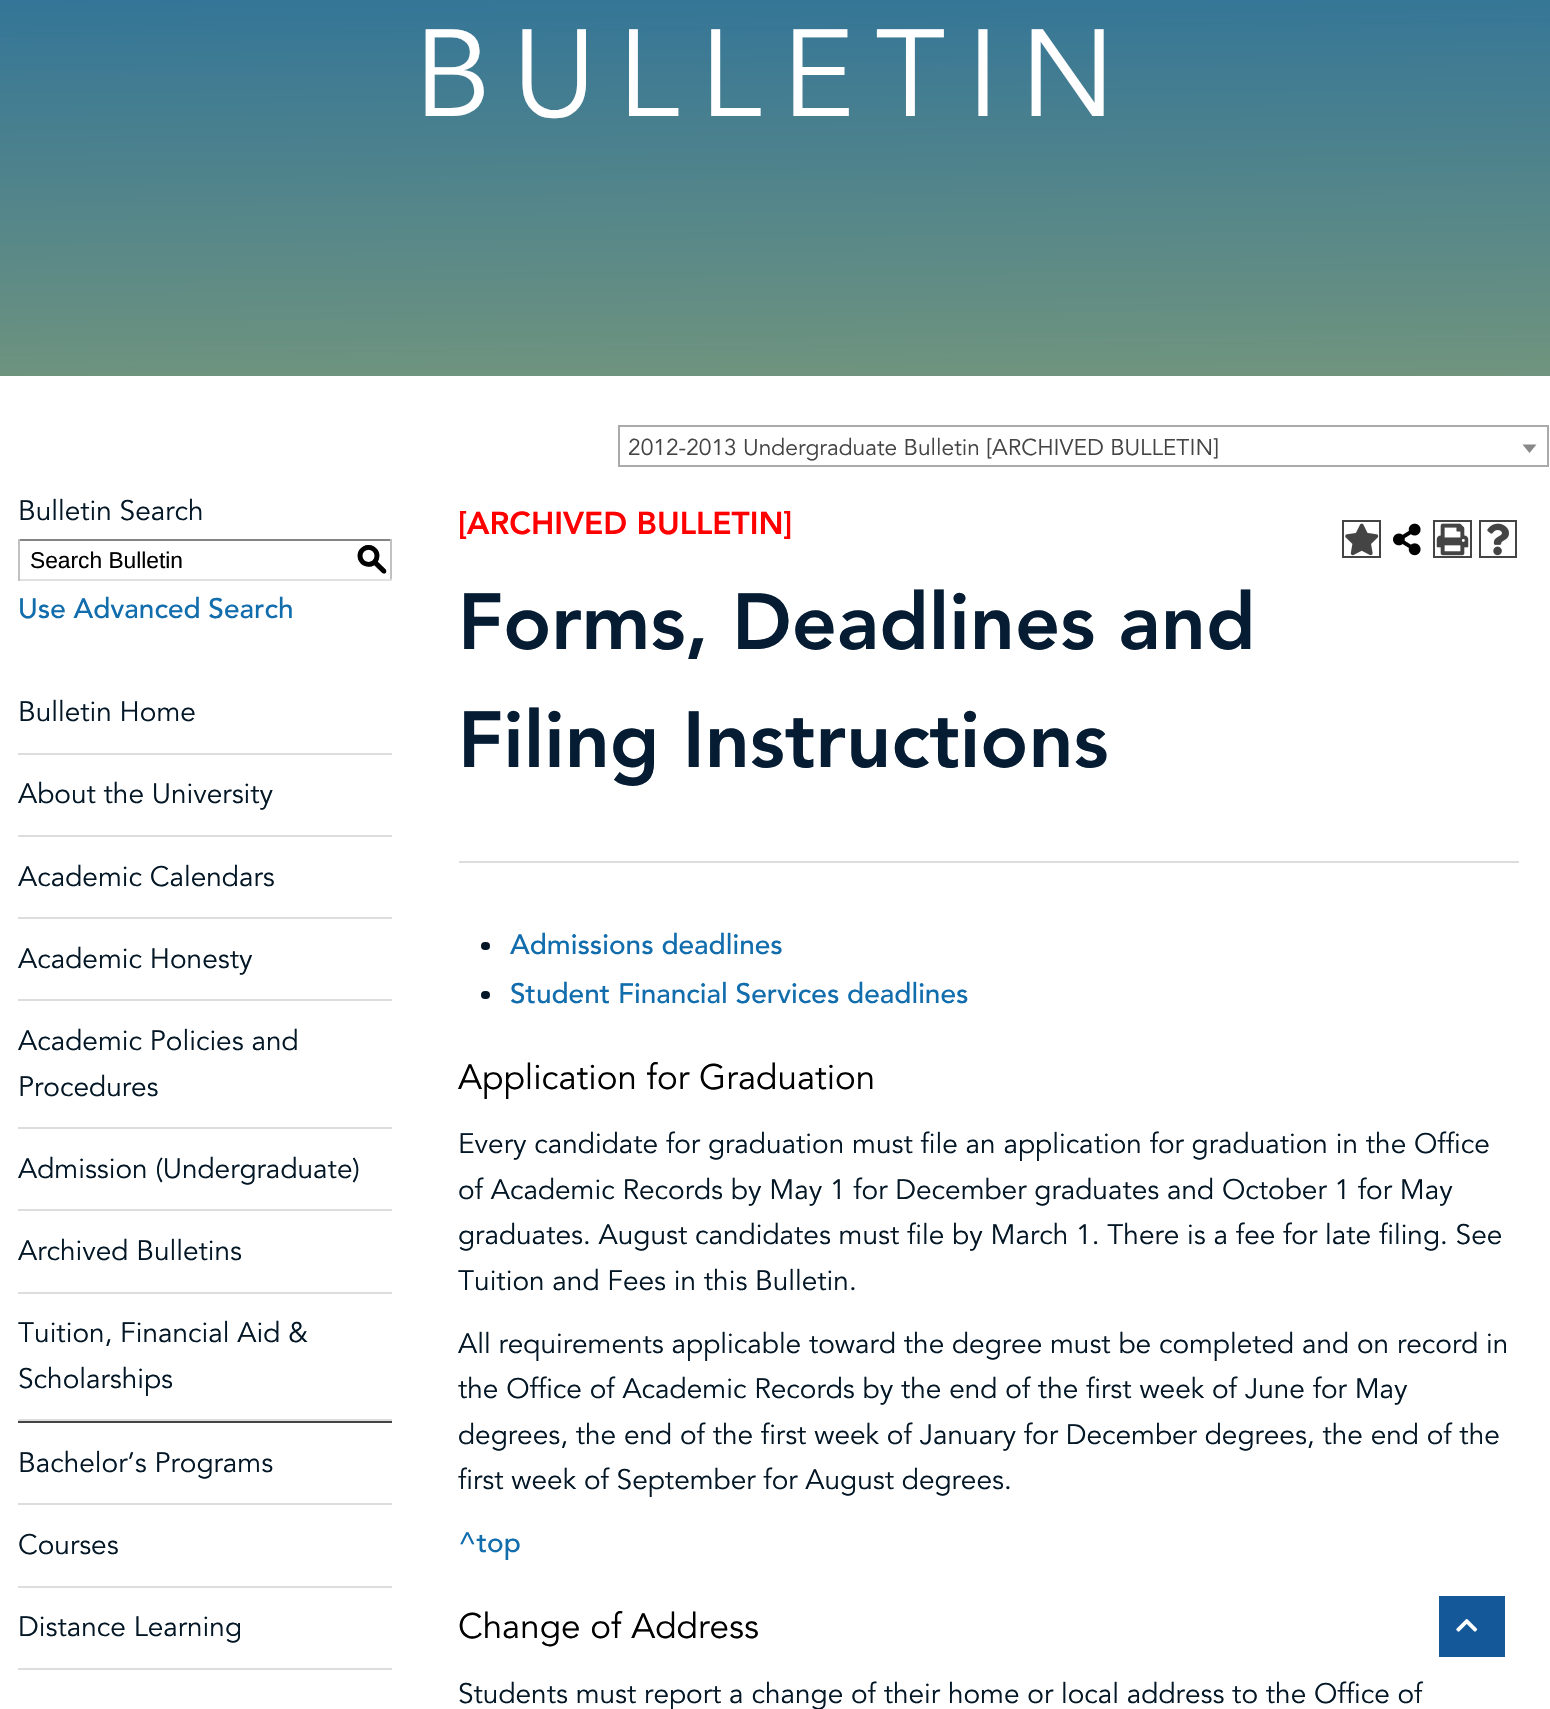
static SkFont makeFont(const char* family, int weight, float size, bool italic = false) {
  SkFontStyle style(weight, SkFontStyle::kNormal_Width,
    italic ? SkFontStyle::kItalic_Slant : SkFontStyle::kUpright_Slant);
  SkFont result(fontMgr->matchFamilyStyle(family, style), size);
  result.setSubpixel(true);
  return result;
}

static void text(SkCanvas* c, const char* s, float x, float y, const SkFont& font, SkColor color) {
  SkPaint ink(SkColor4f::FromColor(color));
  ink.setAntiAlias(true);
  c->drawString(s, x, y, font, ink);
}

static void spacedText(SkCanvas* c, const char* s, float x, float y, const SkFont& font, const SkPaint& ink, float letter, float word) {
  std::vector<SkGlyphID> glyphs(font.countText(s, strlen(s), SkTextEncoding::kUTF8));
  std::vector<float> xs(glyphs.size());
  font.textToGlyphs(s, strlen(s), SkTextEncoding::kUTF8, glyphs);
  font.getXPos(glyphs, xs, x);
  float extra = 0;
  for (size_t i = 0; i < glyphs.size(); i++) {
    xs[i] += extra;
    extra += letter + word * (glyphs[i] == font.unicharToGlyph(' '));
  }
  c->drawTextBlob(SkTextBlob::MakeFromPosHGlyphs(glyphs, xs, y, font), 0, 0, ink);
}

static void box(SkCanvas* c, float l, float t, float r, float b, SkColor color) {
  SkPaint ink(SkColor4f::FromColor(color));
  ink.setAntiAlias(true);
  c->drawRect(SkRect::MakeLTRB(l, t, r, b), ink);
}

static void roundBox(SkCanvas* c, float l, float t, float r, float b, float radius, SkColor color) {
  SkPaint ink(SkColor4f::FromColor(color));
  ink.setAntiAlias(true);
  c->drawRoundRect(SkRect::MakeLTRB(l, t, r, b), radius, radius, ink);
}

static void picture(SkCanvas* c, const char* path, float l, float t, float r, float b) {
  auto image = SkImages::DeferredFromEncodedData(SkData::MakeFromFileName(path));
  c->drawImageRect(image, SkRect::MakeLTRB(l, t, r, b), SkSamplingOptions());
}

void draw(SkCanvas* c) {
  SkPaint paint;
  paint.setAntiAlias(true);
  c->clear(0xffffffff);
  {
    const SkColor colors[] = {0xff1264a6, 0xff70947e};
    const float stops[] = {0, 1};
    const SkPoint ends[] = {{772, -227}, {778, 384}};
    paint.setShader(SkGradientShader::MakeLinear(ends, colors, stops, 2, SkTileMode::kClamp));
    paint.setAlpha(255);
  }
  c->drawRect(SkRect::MakeLTRB(0, 0, 1550, 376), paint);
  SkFont face1 = makeFont("Avenir", 400, 122.5f);
  paint.setShader(nullptr);
  paint.setColor(0xffffffff);
  spacedText(c, "BULLETIN", 414, 116, face1, paint, 21, 0);
  paint.setStyle(SkPaint::kStroke_Style);
  paint.setStrokeWidth(2);
  paint.setColor(0xffaaaaaa);
  c->drawRect(SkRect::MakeLTRB(619, 426, 1548, 466), paint);
  SkFont face2 = makeFont("Avenir", 400, 22.75f);
  text(c, "2012-2013 Undergraduate Bulletin [ARCHIVED BULLETIN]", 628, 455, face2, 0xff444444);
  paint.setStyle(SkPaint::kFill_Style);
  paint.setColor(0xff888888);
  c->drawPath(SkPathBuilder().moveTo(1522.5f, 444.5f).lineTo(1536.5f, 444.5f).lineTo(1529.5f, 453).close().detach(), paint);
  SkFont face3 = makeFont("Avenir", 400, 28);
  text(c, "Bulletin Search", 18, 520, face3, 0xff031726);
  box(c, 18, 539, 392, 541, 0xff848484);
  box(c, 390, 539, 392, 581, 0xffc1c1c1);
  box(c, 18, 579, 392, 581, 0xffe1e1e1);
  box(c, 18, 539, 20, 581, 0xffc1c1c1);
  SkFont face4 = makeFont("Liberation Sans", 400, 22.75f);
  text(c, "Search Bulletin", 30, 568, face4, 0xff000000);
  SkFont face5 = makeFont("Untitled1", 500, 31.5f);
  text(c, "S", 356, 569, face5, 0xff000000);
  SkFont face6 = makeFont("Avenir", 500, 28);
  text(c, "Use Advanced Search", 18, 618, face6, 0xff126dad);
  box(c, 18, 753, 392, 755, 0xffdddddd);
  text(c, "Bulletin Home", 18, 721, face3, 0xff031726);
  box(c, 18, 835, 392, 837, 0xffdddddd);
  text(c, "About the University", 18, 803, face3, 0xff031726);
  box(c, 18, 917, 392, 919, 0xffdddddd);
  text(c, "Academic Calendars", 18, 886, face3, 0xff031726);
  box(c, 18, 999, 392, 1001, 0xffdddddd);
  text(c, "Academic Honesty", 18, 968, face3, 0xff031726);
  box(c, 18, 1127, 392, 1129, 0xffdddddd);
  text(c, "Academic Policies and", 18, 1050, face3, 0xff031726);
  text(c, "Procedures", 18, 1096, face3, 0xff031726);
  box(c, 18, 1209, 392, 1211, 0xffdddddd);
  text(c, "Admission (Undergraduate)", 18, 1178, face3, 0xff031726);
  box(c, 18, 1292, 392, 1294, 0xffdddddd);
  text(c, "Archived Bulletins", 18, 1260, face3, 0xff031726);
  box(c, 18, 1419, 392, 1421, 0xffdddddd);
  text(c, "Tuition, Financial Aid &", 18, 1342, face3, 0xff031726);
  text(c, "Scholarships", 18, 1388, face3, 0xff031726);
  box(c, 18, 1421, 392, 1423, 0xff444444);
  box(c, 18, 1503, 392, 1505, 0xffdddddd);
  text(c, "Bachelor’s Programs", 18, 1472, face3, 0xff031726);
  box(c, 18, 1586, 392, 1588, 0xffdddddd);
  text(c, "Courses", 18, 1554, face3, 0xff031726);
  box(c, 18, 1668, 392, 1670, 0xffdddddd);
  text(c, "Distance Learning", 18, 1636, face3, 0xff031726);
  SkFont face7 = makeFont("Avenir", 900, 31.5f);
  text(c, "[ARCHIVED BULLETIN]", 458, 534, face7, 0xffff0000);
  paint.setStyle(SkPaint::kStroke_Style);
  paint.setColor(0xff444444);
  c->drawRect(SkRect::MakeLTRB(1343, 521, 1380, 557), paint);
  picture(c, "img_01.png", 1345, 523, 1379, 556);
  picture(c, "img_02.png", 1393, 523, 1421, 556);
  c->drawRect(SkRect::MakeLTRB(1434, 521, 1471, 557), paint);
  picture(c, "img_03.png", 1436, 523, 1469, 556);
  c->drawRect(SkRect::MakeLTRB(1480, 521, 1516, 557), paint);
  picture(c, "img_04.png", 1487, 523, 1509, 556);
  SkFont face8 = makeFont("Avenir", 900, 78.75f);
  text(c, "Forms, Deadlines and", 458, 649, face8, 0xff051c33);
  text(c, "Filing Instructions", 458, 767, face8, 0xff051c33);
  box(c, 459, 861, 1519, 863, 0xffdddddd);
  roundBox(c, 481, 942, 490, 950, 4, 0xff031726);
  text(c, "Admissions deadlines", 510, 954, face6, 0xff126dad);
  roundBox(c, 481, 991, 490, 999, 4, 0xff031726);
  text(c, "Student Financial Services deadlines", 510, 1003, face6, 0xff126dad);
  SkFont face9 = makeFont("Avenir", 400, 35);
  text(c, "Application for Graduation", 458, 1089, face9, 0xff000000);
  text(c, "Every candidate for graduation must file an application for graduation in the Office", 458, 1153, face3, 0xff031726);
  text(c, "of Academic Records by May 1 for December graduates and October 1 for May", 458, 1199, face3, 0xff031726);
  text(c, "graduates. August candidates must file by March 1. There is a fee for late filing. See", 458, 1244, face3, 0xff031726);
  text(c, "Tuition and Fees in this Bulletin.", 458, 1290, face3, 0xff031726);
  text(c, "All requirements applicable toward the degree must be completed and on record in", 458, 1353, face3, 0xff031726);
  text(c, "the Office of Academic Records by the end of the first week of June for May", 458, 1398, face3, 0xff031726);
  text(c, "degrees, the end of the first week of January for December degrees, the end of the", 458, 1444, face3, 0xff031726);
  text(c, "first week of September for August degrees.", 458, 1489, face3, 0xff031726);
  text(c, "^top", 458, 1552, face6, 0xff126dad);
  text(c, "Change of Address", 458, 1638, face9, 0xff000000);
  text(c, "Students must report a change of their home or local address to the Office of", 458, 1703, face3, 0xff031726);
  box(c, 1439, 1596, 1505, 1657, 0xff14589a);
  picture(c, "img_05.png", 1456, 1619, 1478, 1632);
}
